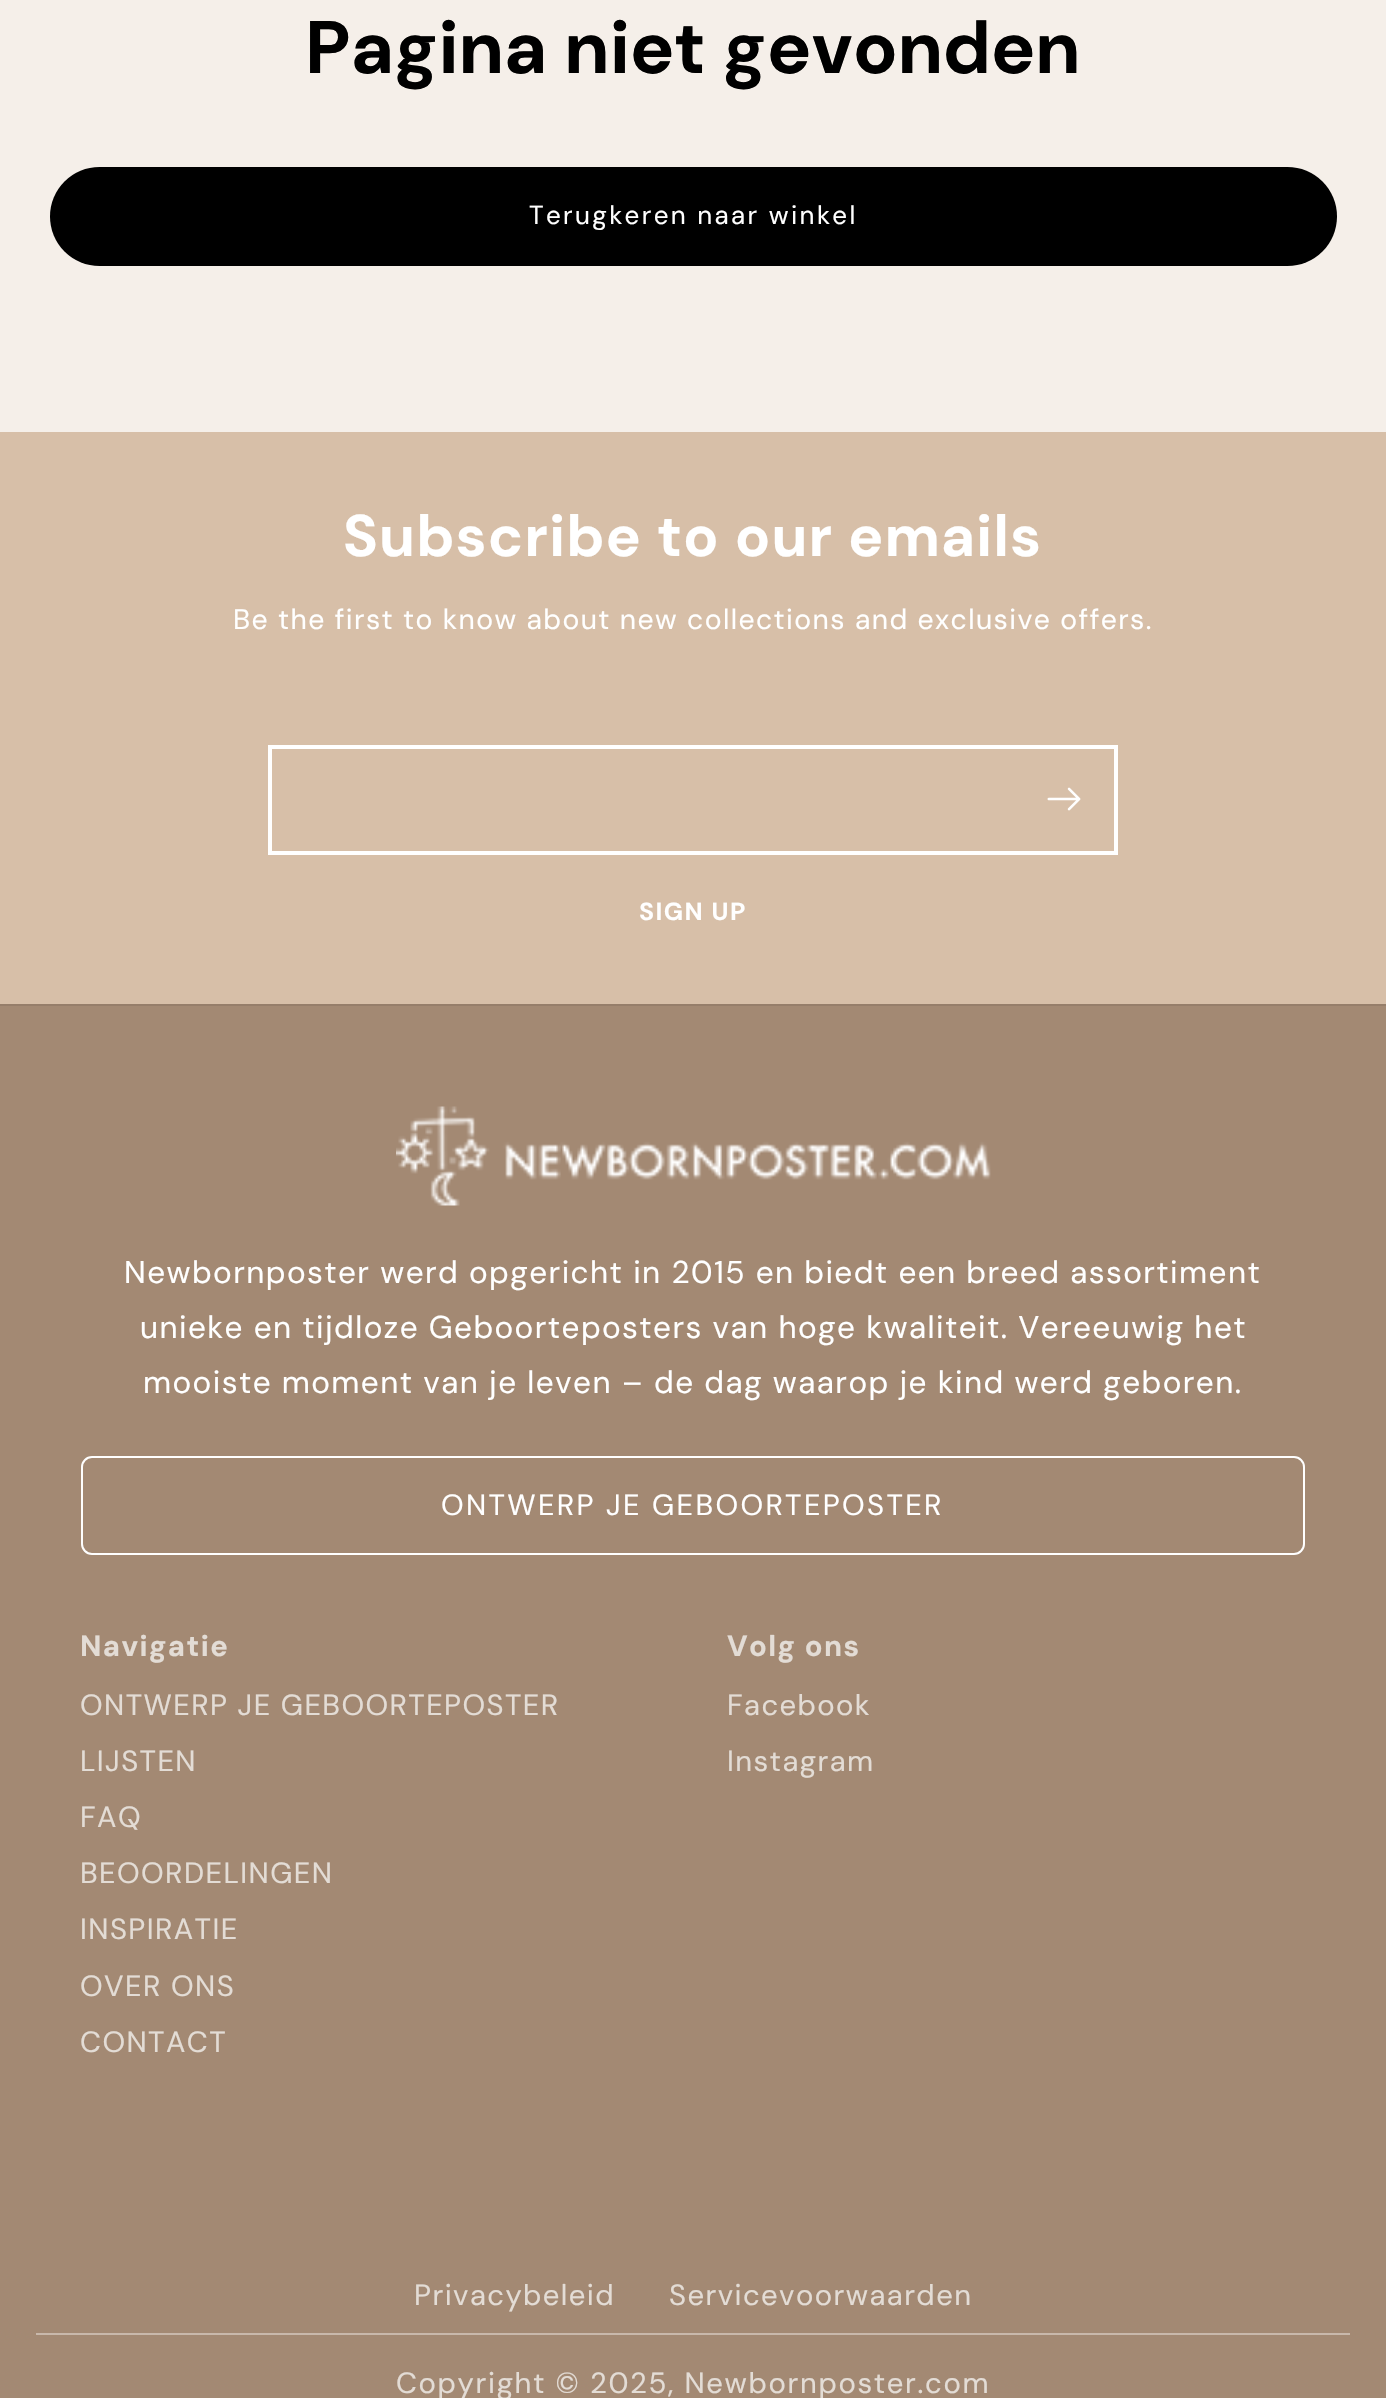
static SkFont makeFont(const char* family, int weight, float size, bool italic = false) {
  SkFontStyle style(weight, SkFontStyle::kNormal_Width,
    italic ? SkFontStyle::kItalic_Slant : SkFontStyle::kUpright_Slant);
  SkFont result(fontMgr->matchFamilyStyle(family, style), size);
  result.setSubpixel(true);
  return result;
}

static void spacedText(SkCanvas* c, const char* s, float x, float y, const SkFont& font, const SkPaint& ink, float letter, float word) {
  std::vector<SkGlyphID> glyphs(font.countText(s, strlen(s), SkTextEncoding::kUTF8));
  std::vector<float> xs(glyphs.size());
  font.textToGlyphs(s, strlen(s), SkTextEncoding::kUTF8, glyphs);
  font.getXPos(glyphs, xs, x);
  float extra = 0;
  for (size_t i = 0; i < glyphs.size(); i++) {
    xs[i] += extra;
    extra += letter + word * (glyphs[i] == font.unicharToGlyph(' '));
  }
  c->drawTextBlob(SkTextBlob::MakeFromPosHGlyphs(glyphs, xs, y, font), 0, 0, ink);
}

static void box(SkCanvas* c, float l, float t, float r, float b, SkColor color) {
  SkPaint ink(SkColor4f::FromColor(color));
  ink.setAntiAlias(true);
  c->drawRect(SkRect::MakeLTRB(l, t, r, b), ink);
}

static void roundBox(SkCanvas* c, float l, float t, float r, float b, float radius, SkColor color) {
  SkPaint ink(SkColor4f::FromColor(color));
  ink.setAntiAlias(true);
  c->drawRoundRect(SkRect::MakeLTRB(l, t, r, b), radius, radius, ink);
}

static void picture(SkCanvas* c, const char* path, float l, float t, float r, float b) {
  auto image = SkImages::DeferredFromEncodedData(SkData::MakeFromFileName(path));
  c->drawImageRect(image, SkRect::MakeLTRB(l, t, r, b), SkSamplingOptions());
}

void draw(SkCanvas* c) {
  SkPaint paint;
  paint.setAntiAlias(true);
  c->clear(0xfff5efe9);
  SkFont face1 = makeFont("DM Sans", 700, 74.25f);
  paint.setColor(0xff000000);
  spacedText(c, "Pagina niet gevonden", 306, 73, face1, paint, 1.5f, 0);
  roundBox(c, 50, 167, 1337, 266, 49.5f, 0xff000000);
  SkFont face2 = makeFont("DM Sans", 400, 26);
  paint.setColor(0xffffffff);
  spacedText(c, "Terugkeren naar winkel", 529, 224, face2, paint, 2.35f, 0);
  box(c, 0, 432, 1386, 1004, 0xffd7bfa8);
  SkFont face3 = makeFont("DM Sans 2", 700, 58.5f);
  spacedText(c, "Subscribe to our emails", 343, 556, face3, paint, 1.5f, 0);
  SkFont face4 = makeFont("DM Sans", 400, 28.35f);
  spacedText(c, "Be the first to know about new collections and exclusive offers.", 233, 629, face4, paint, 1.42f, 0);
  paint.setStyle(SkPaint::kStroke_Style);
  paint.setStrokeWidth(2);
  c->drawRect(SkRect::MakeLTRB(271, 748, 1115, 852), paint);
  c->drawRect(SkRect::MakeLTRB(269, 746, 1117, 854), paint);
  picture(c, "img_01.png", 1047, 787, 1081, 811);
  SkFont face5 = makeFont("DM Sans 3", 700, 24.75f);
  paint.setStyle(SkPaint::kFill_Style);
  spacedText(c, "SIGN UP", 639, 920, face5, paint, 1.42f, 0);
  box(c, 0, 1006, 1386, 2398, 0xffa38973);
  box(c, 0, 1004, 1386, 1006, 0xff967e6a);
  picture(c, "img_02.png", 396, 1106, 991, 1206);
  SkFont face6 = makeFont("DM Sans", 400, 31.5f);
  spacedText(c, "Newbornposter werd opgericht in 2015 en biedt een breed assortiment", 124, 1283, face6, paint, 1.42f, 0);
  spacedText(c, "unieke en tijdloze Geboorteposters van hoge kwaliteit. Vereeuwig het", 140, 1338, face6, paint, 1.42f, 0);
  spacedText(c, "mooiste moment van je leven – de dag waarop je kind werd geboren.", 143, 1393, face6, paint, 1.42f, 0);
  paint.setStyle(SkPaint::kStroke_Style);
  c->drawRoundRect(SkRect::MakeLTRB(82, 1457, 1304, 1554), 10, 10, paint);
  SkFont face7 = makeFont("DM Sans", 400, 29.25f);
  paint.setStyle(SkPaint::kFill_Style);
  spacedText(c, "ONTWERP JE GEBOORTEPOSTER", 441, 1515, face7, paint, 2.35f, 0);
  SkFont face8 = makeFont("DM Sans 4", 700, 29.25f);
  paint.setColor(0xffe3dcd5);
  spacedText(c, "Navigatie", 80, 1656, face8, paint, 1.42f, 0);
  spacedText(c, "ONTWERP JE GEBOORTEPOSTER", 80, 1715, face7, paint, 1.42f, 0);
  spacedText(c, "LIJSTEN", 80, 1771, face7, paint, 1.42f, 0);
  spacedText(c, "FAQ", 80, 1827, face7, paint, 1.42f, 0);
  spacedText(c, "BEOORDELINGEN", 80, 1883, face7, paint, 1.42f, 0);
  spacedText(c, "INSPIRATIE", 80, 1939, face7, paint, 1.42f, 0);
  spacedText(c, "OVER ONS", 80, 1996, face7, paint, 1.42f, 0);
  spacedText(c, "CONTACT", 80, 2052, face7, paint, 1.42f, 0);
  spacedText(c, "Volg ons", 727, 1656, face8, paint, 1.42f, 0);
  spacedText(c, "Facebook", 727, 1715, face7, paint, 1.42f, 0);
  spacedText(c, "Instagram", 727, 1771, face7, paint, 1.42f, 0);
  spacedText(c, "Privacybeleid", 414, 2305, face7, paint, 1.42f, 0);
  spacedText(c, "Servicevoorwaarden", 669, 2305, face7, paint, 1.42f, 0);
  box(c, 36, 2333, 1350, 2335, 0xffc8b8ab);
  spacedText(c, "Copyright © 2025, Newbornposter.com", 396, 2393, face7, paint, 1.65f, 0);
}
